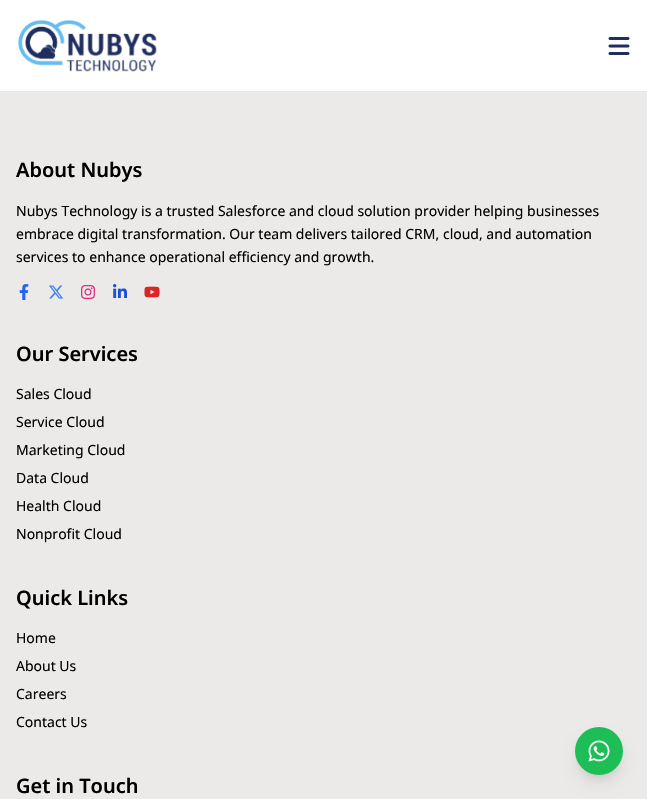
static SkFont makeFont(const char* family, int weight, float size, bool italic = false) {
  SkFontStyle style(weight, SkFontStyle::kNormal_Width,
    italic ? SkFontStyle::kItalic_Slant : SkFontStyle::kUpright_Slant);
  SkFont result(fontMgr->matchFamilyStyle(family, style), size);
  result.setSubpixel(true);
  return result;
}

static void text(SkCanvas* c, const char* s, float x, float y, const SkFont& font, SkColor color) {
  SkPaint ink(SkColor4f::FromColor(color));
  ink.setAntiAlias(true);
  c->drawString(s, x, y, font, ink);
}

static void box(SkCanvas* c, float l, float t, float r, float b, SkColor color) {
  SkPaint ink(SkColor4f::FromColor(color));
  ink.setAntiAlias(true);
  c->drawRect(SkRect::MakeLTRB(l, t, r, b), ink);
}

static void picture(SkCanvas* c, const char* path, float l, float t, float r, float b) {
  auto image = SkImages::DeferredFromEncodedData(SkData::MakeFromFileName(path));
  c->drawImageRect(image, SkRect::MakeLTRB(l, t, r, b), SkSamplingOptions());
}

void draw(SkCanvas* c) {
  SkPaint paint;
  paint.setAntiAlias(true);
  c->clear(0xffffffff);
  picture(c, "img_01.png", 18, 20, 157, 72);
  picture(c, "img_02.png", 608, 37, 630, 55);
  box(c, 0, 92, 647, 799, 0xffece9e9);
  box(c, 0, 91, 647, 92, 0xffe5e7eb);
  SkFont face1 = makeFont("Noto Sans", 600, 20);
  text(c, "About Nubys", 16, 177, face1, 0xff000000);
  SkFont face2 = makeFont("Noto Sans", 400, 14);
  text(c, "Nubys Technology is a trusted Salesforce and cloud solution provider helping businesses", 16, 216, face2, 0xff000000);
  text(c, "embrace digital transformation. Our team delivers tailored CRM, cloud, and automation", 16, 239, face2, 0xff000000);
  text(c, "services to enhance operational efficiency and growth.", 16, 262, face2, 0xff000000);
  picture(c, "img_03.png", 19, 284, 29, 300);
  picture(c, "img_04.png", 49, 285, 64, 299);
  picture(c, "img_05.png", 81, 285, 95, 299);
  picture(c, "img_06.png", 113, 284, 127, 298);
  picture(c, "img_07.png", 144, 286, 160, 298);
  text(c, "Our Services", 16, 361, face1, 0xff000000);
  text(c, "Sales Cloud", 16, 399, face2, 0xff000000);
  text(c, "Service Cloud", 16, 427, face2, 0xff000000);
  text(c, "Marketing Cloud", 16, 455, face2, 0xff000000);
  text(c, "Data Cloud", 16, 483, face2, 0xff000000);
  text(c, "Health Cloud", 16, 511, face2, 0xff000000);
  text(c, "Nonprofit Cloud", 16, 539, face2, 0xff000000);
  text(c, "Quick Links", 16, 605, face1, 0xff000000);
  text(c, "Home", 16, 643, face2, 0xff000000);
  text(c, "About Us", 16, 671, face2, 0xff000000);
  text(c, "Careers", 16, 699, face2, 0xff000000);
  text(c, "Contact Us", 16, 727, face2, 0xff000000);
  text(c, "Get in Touch", 16, 793, face1, 0xff000000);
  paint.setColor(0x1a000000);
  paint.setMaskFilter(SkMaskFilter::MakeBlur(kNormal_SkBlurStyle, 3));
  c->drawRoundRect(SkRect::MakeLTRB(579, 735, 619, 775), 20, 20, paint);
  paint.setMaskFilter(nullptr);
  paint.setMaskFilter(SkMaskFilter::MakeBlur(kNormal_SkBlurStyle, 7.5f));
  c->drawRoundRect(SkRect::MakeLTRB(578, 740, 620, 782), 21, 21, paint);
  paint.setMaskFilter(nullptr);
  paint.setColor(0xff1ebe57);
  c->drawCircle(599, 751, 24, paint);
  picture(c, "img_08.png", 588, 740, 610, 762);
}
